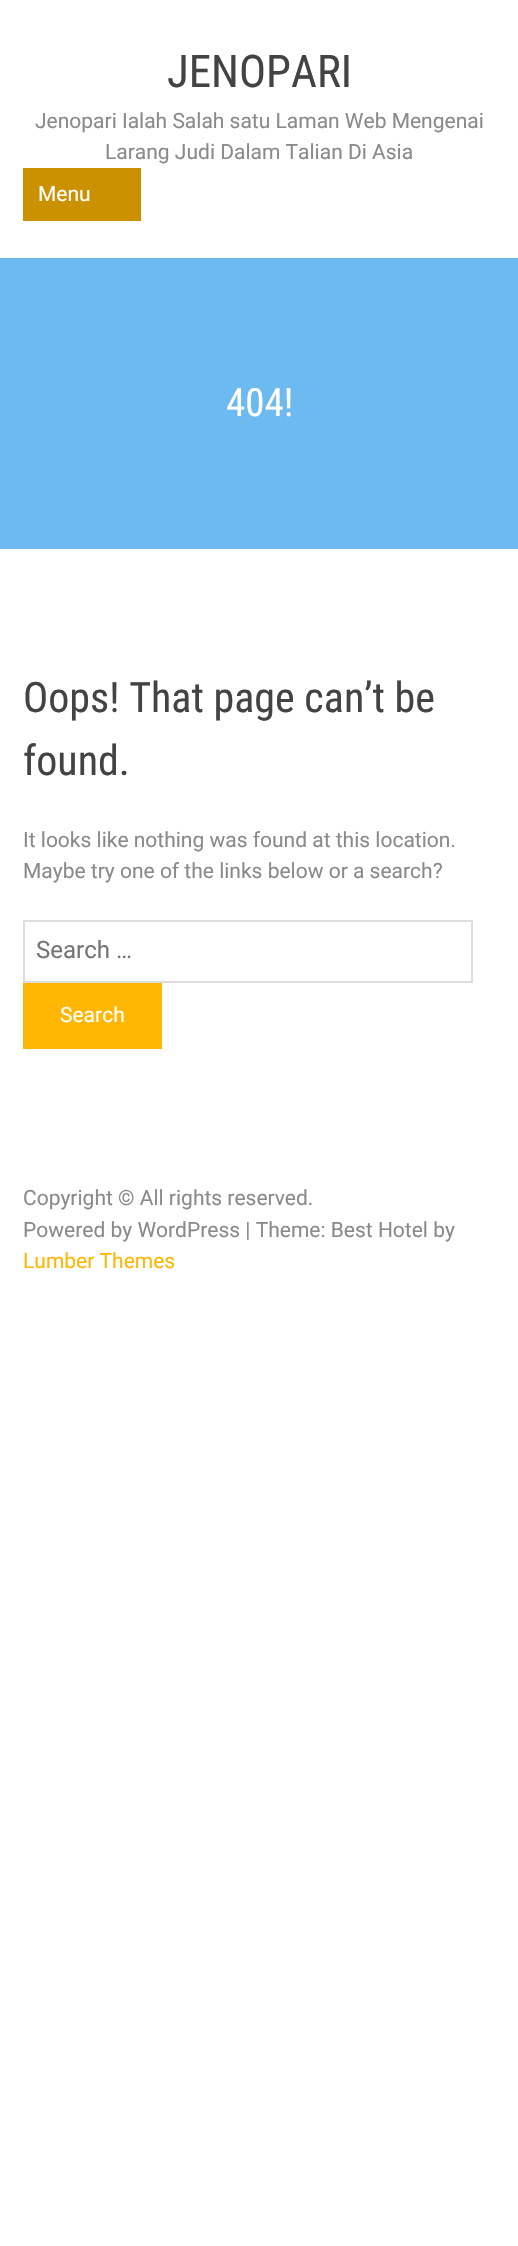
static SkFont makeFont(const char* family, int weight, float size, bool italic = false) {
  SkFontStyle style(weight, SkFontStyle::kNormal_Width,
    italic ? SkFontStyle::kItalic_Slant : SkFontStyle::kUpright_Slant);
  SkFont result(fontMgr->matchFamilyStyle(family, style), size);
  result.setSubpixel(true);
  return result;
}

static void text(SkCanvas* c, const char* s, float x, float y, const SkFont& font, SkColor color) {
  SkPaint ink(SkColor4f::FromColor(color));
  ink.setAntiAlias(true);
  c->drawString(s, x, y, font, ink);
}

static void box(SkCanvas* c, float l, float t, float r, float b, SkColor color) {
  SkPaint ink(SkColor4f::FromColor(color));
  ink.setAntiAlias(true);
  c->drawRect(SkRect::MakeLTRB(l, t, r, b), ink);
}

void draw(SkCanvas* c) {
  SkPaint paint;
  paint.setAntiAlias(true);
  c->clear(0xffffffff);
  SkFont face1 = makeFont("Roboto Condensed", 400, 45);
  text(c, "JENOPARI", 167, 87, face1, 0xff434343);
  SkFont face2 = makeFont("Roboto", 400, 21);
  text(c, "Jenopari Ialah Salah satu Laman Web Mengenai", 35, 128, face2, 0xff8a8a8a);
  text(c, "Larang Judi Dalam Talian Di Asia", 105, 159, face2, 0xff8a8a8a);
  box(c, 23, 168, 141, 221, 0xffcc9100);
  text(c, "Menu", 38, 201, face2, 0xffffffff);
  box(c, 0, 258, 518, 549, 0xff6cbaf0);
  SkFont face3 = makeFont("Roboto Condensed", 400, 39);
  text(c, "404!", 226, 416, face3, 0xffffffff);
  SkFont face4 = makeFont("Roboto Condensed", 400, 42);
  text(c, "Oops! That page can’t be", 23, 712, face4, 0xff434343);
  text(c, "found.", 23, 775, face4, 0xff434343);
  text(c, "It looks like nothing was found at this location.", 23, 847, face2, 0xff8a8a8a);
  text(c, "Maybe try one of the links below or a search?", 23, 878, face2, 0xff8a8a8a);
  paint.setStyle(SkPaint::kStroke_Style);
  paint.setStrokeWidth(2);
  paint.setColor(0xffdddddd);
  c->drawRect(SkRect::MakeLTRB(24, 921, 472, 982), paint);
  SkFont face5 = makeFont("Roboto", 400, 24);
  text(c, "Search …", 36, 958, face5, 0xff757575);
  box(c, 23, 983, 162, 1049, 0xffffb703);
  text(c, "Search", 60, 1022, face2, 0xffffffff);
  text(c, "Copyright © All rights reserved.", 23, 1205, face2, 0xff8a8a8a);
  text(c, "Powered by WordPress | Theme: Best Hotel by", 23, 1237, face2, 0xff8a8a8a);
  text(c, "Lumber Themes", 23, 1268, face2, 0xffffb703);
}
